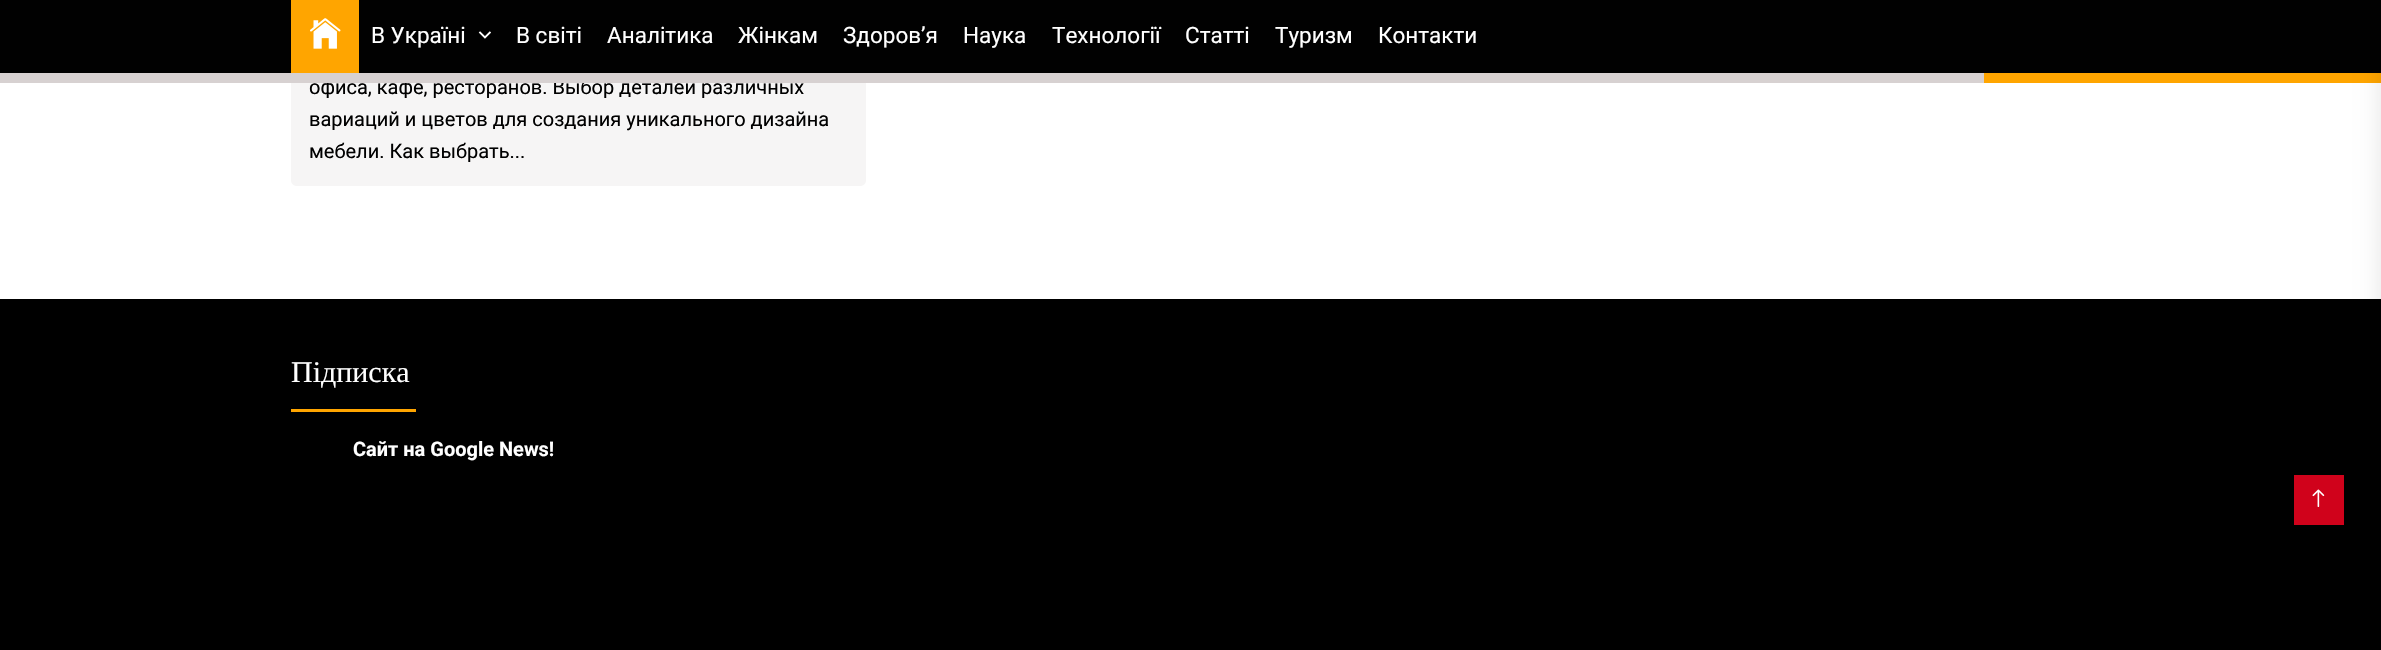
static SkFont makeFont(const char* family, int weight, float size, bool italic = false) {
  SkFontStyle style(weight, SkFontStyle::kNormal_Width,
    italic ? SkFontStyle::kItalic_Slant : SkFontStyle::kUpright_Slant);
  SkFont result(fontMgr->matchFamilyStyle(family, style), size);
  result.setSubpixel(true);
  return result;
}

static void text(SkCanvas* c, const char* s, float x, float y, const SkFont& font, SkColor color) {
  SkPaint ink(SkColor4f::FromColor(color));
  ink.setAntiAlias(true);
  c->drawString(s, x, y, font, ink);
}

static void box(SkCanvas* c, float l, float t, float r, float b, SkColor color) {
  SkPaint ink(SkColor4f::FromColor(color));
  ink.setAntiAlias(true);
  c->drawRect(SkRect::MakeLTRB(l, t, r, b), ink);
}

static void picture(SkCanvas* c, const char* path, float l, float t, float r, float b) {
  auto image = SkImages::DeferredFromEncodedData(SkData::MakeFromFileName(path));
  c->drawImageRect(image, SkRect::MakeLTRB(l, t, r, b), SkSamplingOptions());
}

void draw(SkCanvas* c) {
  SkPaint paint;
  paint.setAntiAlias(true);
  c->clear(0xffffffff);
  paint.setColor(0xfff6f5f5);
  c->drawPath(SkPathBuilder().moveTo(291, -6).lineTo(866, -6).lineTo(866, 180).cubicTo(866, 183.5f, 863.5f, 186, 860, 186).lineTo(297, 186).cubicTo(293.5f, 186, 291, 183.5f, 291, 180).close().detach(), paint);
  box(c, 0, 0, 2381, 73, 0xff010101);
  box(c, 291, 0, 359, 73, 0xffffa500);
  picture(c, "img_01.png", 310, 18, 341, 49);
  SkFont face1 = makeFont("Roboto", 400, 22.5f);
  text(c, "В Україні", 371, 43, face1, 0xffffffff);
  picture(c, "img_02.png", 478, 31, 491, 39);
  text(c, "В світі", 516, 43, face1, 0xffffffff);
  text(c, "Аналітика", 607, 43, face1, 0xffffffff);
  text(c, "Жінкам", 738, 43, face1, 0xffffffff);
  text(c, "Здоров’я", 843, 43, face1, 0xffffffff);
  text(c, "Наука", 963, 43, face1, 0xffffffff);
  text(c, "Технології", 1052, 43, face1, 0xffffffff);
  text(c, "Статті", 1185, 43, face1, 0xffffffff);
  text(c, "Туризм", 1275, 43, face1, 0xffffffff);
  text(c, "Контакти", 1378, 43, face1, 0xffffffff);
  SkFont face2 = makeFont("Roboto", 400, 20);
  text(c, "офиса, кафе, ресторанов. Выбор деталей различных", 309, 94, face2, 0xff000000);
  box(c, 0, 73, 1984, 83, 0xffd7d1d1);
  box(c, 1984, 73, 2381, 83, 0xffffa500);
  text(c, "вариаций и цветов для создания уникального дизайна", 309, 126, face2, 0xff000000);
  text(c, "мебели. Как выбрать...", 309, 158, face2, 0xff000000);
  box(c, 0, 299, 2381, 650, 0xff000000);
  box(c, 2294, 475, 2344, 525, 0xffd0021b);
  paint.setColor(0x1a000000);
  paint.setMaskFilter(SkMaskFilter::MakeBlur(kNormal_SkBlurStyle, 12.5f));
  c->drawRect(SkRect::MakeLTRB(2381, 0, 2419, 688), paint);
  paint.setMaskFilter(nullptr);
  SkFont face3 = makeFont("Liberation Serif", 400, 30);
  text(c, "Підписка", 291, 382, face3, 0xffffffff);
  box(c, 291, 409, 416, 412, 0xffffa500);
  SkFont face4 = makeFont("Roboto", 700, 20);
  text(c, "Сайт на Google News!", 353, 456, face4, 0xffffffff);
  picture(c, "img_03.png", 2312, 489, 2325, 507);
}
